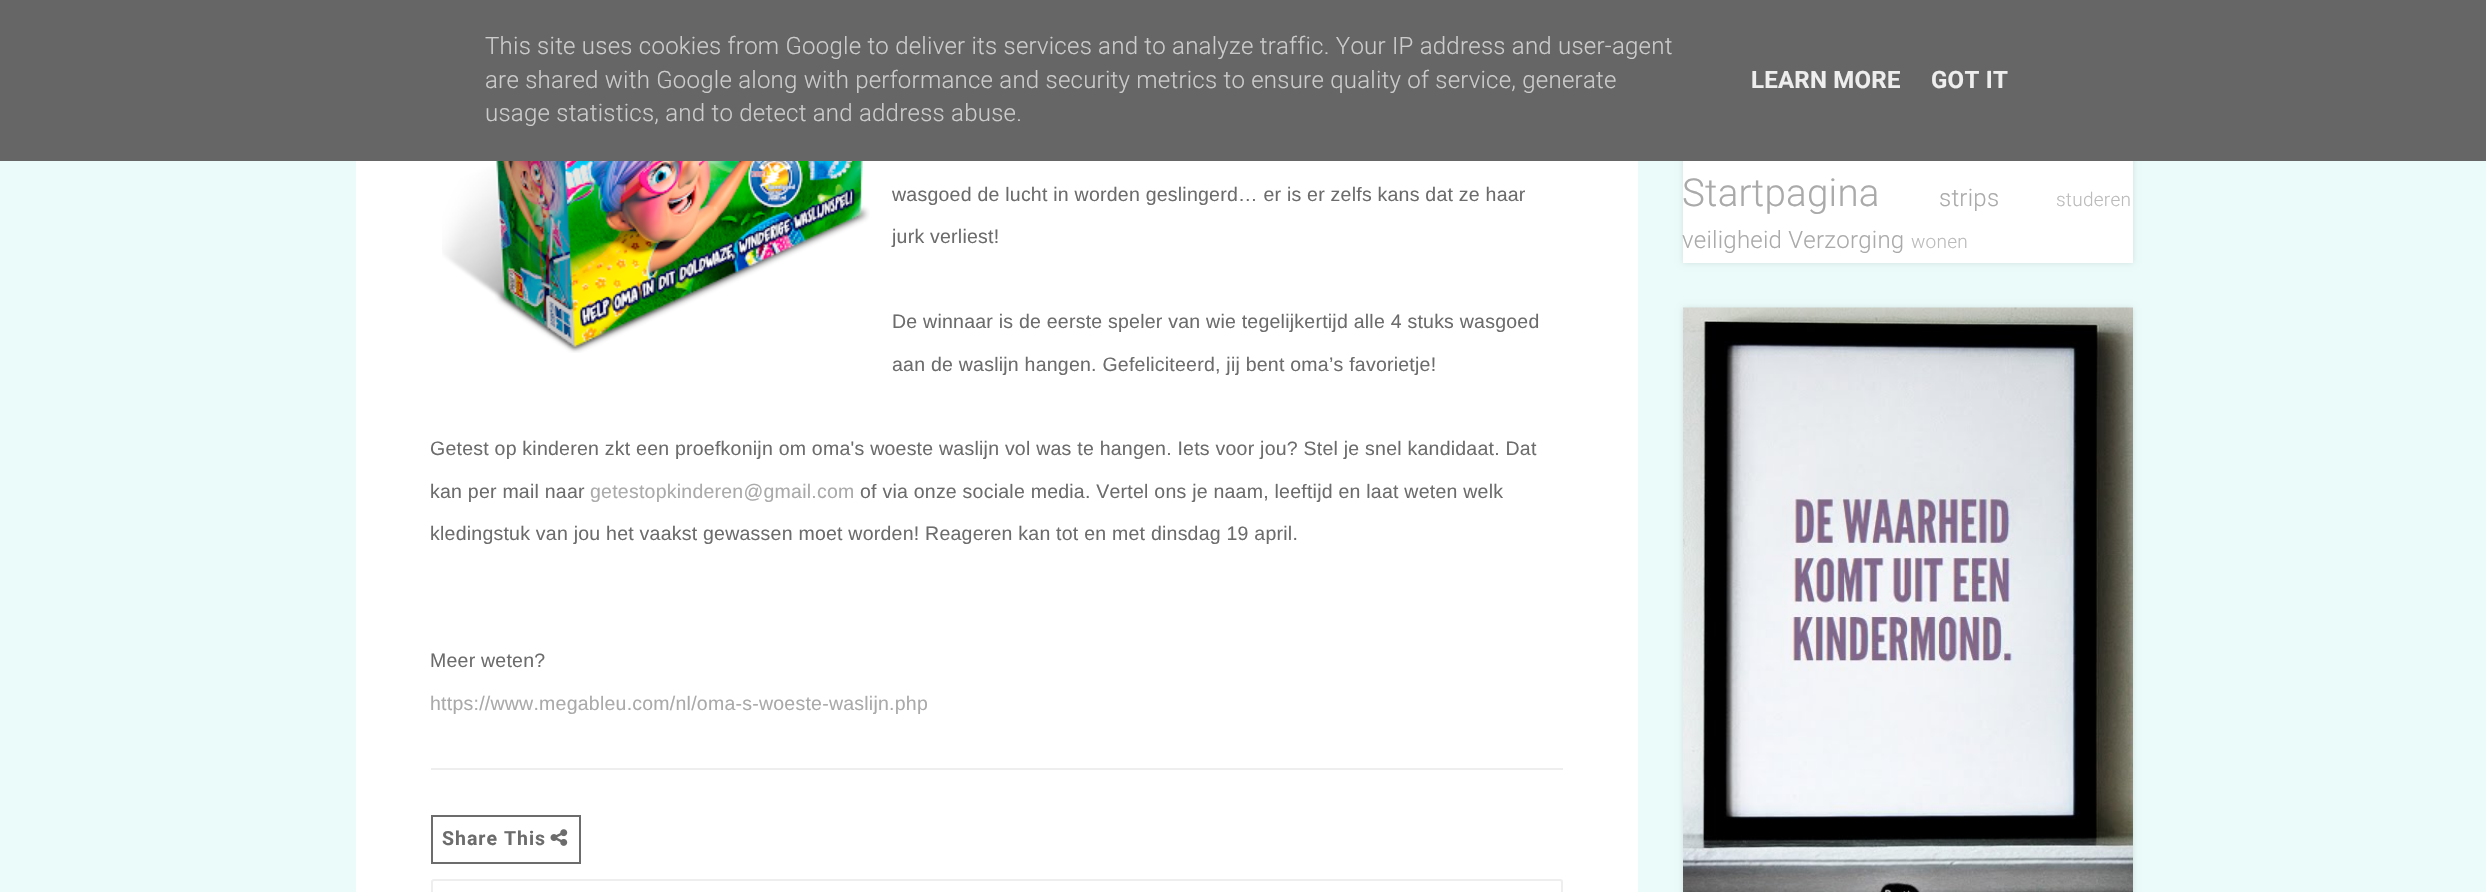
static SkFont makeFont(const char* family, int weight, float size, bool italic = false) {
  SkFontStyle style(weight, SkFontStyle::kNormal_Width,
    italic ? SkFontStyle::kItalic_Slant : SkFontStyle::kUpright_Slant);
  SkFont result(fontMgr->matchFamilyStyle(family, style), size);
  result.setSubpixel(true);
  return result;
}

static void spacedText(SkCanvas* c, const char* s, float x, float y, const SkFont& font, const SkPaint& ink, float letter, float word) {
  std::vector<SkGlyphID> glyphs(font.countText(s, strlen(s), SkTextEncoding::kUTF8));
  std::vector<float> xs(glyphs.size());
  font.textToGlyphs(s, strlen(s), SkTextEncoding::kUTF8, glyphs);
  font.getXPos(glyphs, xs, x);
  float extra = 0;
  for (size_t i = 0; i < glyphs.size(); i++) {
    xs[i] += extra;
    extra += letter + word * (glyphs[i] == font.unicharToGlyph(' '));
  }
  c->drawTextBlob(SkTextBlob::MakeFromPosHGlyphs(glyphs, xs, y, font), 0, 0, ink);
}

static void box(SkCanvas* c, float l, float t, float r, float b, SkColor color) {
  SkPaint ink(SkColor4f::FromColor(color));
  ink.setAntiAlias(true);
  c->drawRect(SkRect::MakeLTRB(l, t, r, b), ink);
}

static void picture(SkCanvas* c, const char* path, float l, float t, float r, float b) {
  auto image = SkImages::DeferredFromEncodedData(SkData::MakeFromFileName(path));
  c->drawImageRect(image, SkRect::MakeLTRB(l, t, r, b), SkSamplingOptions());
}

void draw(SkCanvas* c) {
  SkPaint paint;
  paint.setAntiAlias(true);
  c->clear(0xffeafbfa);
  paint.setColor(0x1a000000);
  paint.setMaskFilter(SkMaskFilter::MakeBlur(kNormal_SkBlurStyle, 3));
  c->drawRect(SkRect::MakeLTRB(1683, -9, 2133, 263), paint);
  paint.setMaskFilter(nullptr);
  box(c, 0, 0, 2486, 161, 0xff666666);
  SkFont face1 = makeFont("Roboto", 300, 24);
  paint.setColor(0xffcccccc);
  spacedText(c, "This site uses cookies from Google to deliver its services and to analyze traffic. Your IP address and user-agent", 485, 54, face1, paint, 0.24f, 0);
  spacedText(c, "are shared with Google along with performance and security metrics to ensure quality of service, generate", 485, 88, face1, paint, 0.24f, 0);
  spacedText(c, "usage statistics, and to detect and address abuse.", 485, 121, face1, paint, 0.24f, 0);
  SkFont face2 = makeFont("Roboto", 700, 24);
  paint.setColor(0xffeeeeee);
  spacedText(c, "LEARN MORE", 1751, 88, face2, paint, 0.24f, 0);
  spacedText(c, "GOT IT", 1931, 88, face2, paint, 0.24f, 0);
  box(c, 356, 161, 1638, 892, 0xffffffff);
  picture(c, "img_01.png", 442, 161, 870, 353);
  SkFont face3 = makeFont("Liberation Sans", 400, 19.5f);
  paint.setColor(0xff6c6c6c);
  spacedText(c, "wasgoed de lucht in worden geslingerd… er is er zelfs kans dat ze haar", 892, 201, face3, paint, 0.24f, 0);
  spacedText(c, "jurk verliest!", 892, 243, face3, paint, 0.24f, 0);
  spacedText(c, "De winnaar is de eerste speler van wie tegelijkertijd alle 4 stuks wasgoed", 892, 328, face3, paint, 0.24f, 0);
  spacedText(c, "aan de waslijn hangen. Gefeliciteerd, jij bent oma’s favorietje!", 892, 371, face3, paint, 0.24f, 0);
  spacedText(c, "Getest op kinderen zkt een proefkonijn om oma's woeste waslijn vol was te hangen. Iets voor jou? Stel je snel kandidaat. Dat", 430, 455, face3, paint, 0.24f, 0);
  spacedText(c, "kan per mail naar", 430, 498, face3, paint, 0.24f, 0);
  paint.setColor(0xffaaaaaa);
  spacedText(c, "getestopkinderen@gmail.com", 590, 498, face3, paint, 0.24f, 0);
  paint.setColor(0xff6c6c6c);
  spacedText(c, "of via onze sociale media. Vertel ons je naam, leeftijd en laat weten welk", 860, 498, face3, paint, 0.24f, 0);
  spacedText(c, "kledingstuk van jou het vaakst gewassen moet worden! Reageren kan tot en met dinsdag 19 april.", 430, 540, face3, paint, 0.24f, 0);
  spacedText(c, "Meer weten?", 430, 667, face3, paint, 0.24f, 0);
  paint.setColor(0xffaaaaaa);
  spacedText(c, "https://www.megableu.com/nl/oma-s-woeste-waslijn.php", 430, 710, face3, paint, 0.24f, 0);
  box(c, 431, 768, 1563, 770, 0xffeeeeee);
  paint.setStyle(SkPaint::kStroke_Style);
  paint.setStrokeWidth(2);
  paint.setColor(0xff6c6c6c);
  c->drawRect(SkRect::MakeLTRB(432, 816, 580, 863), paint);
  SkFont face4 = makeFont("Roboto", 700, 19.5f);
  paint.setStyle(SkPaint::kFill_Style);
  spacedText(c, "Share This", 442, 845, face4, paint, 1, 0);
  picture(c, "img_02.png", 550, 829, 568, 846);
  paint.setStyle(SkPaint::kStroke_Style);
  paint.setColor(0xffeeeeee);
  c->drawRoundRect(SkRect::MakeLTRB(432, 880, 1562, 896), 2, 2, paint);
  box(c, 1683, 161, 2133, 263, 0xffffffff);
  SkFont face5 = makeFont("Roboto", 300, 38.5f);
  paint.setStyle(SkPaint::kFill_Style);
  paint.setColor(0xffaaaaaa);
  spacedText(c, "Startpagina", 1682, 206, face5, paint, 0.24f, 0);
  spacedText(c, "strips", 1939, 206, face1, paint, 0.24f, 0);
  SkFont face6 = makeFont("Roboto", 300, 19);
  paint.setColor(0xffbbbbbb);
  spacedText(c, "studeren", 2056, 206, face6, paint, 0.24f, 0);
  paint.setColor(0xffaaaaaa);
  spacedText(c, "veiligheid Verzorging", 1682, 248, face1, paint, 0.24f, 0);
  paint.setColor(0xffbbbbbb);
  spacedText(c, "wonen", 1911, 248, face6, paint, 0.24f, 0);
  paint.setColor(0x1a000000);
  paint.setMaskFilter(SkMaskFilter::MakeBlur(kNormal_SkBlurStyle, 3));
  c->drawRect(SkRect::MakeLTRB(1683, 308, 2133, 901), paint);
  paint.setMaskFilter(nullptr);
  picture(c, "img_03.png", 1683, 307, 2133, 892);
}
